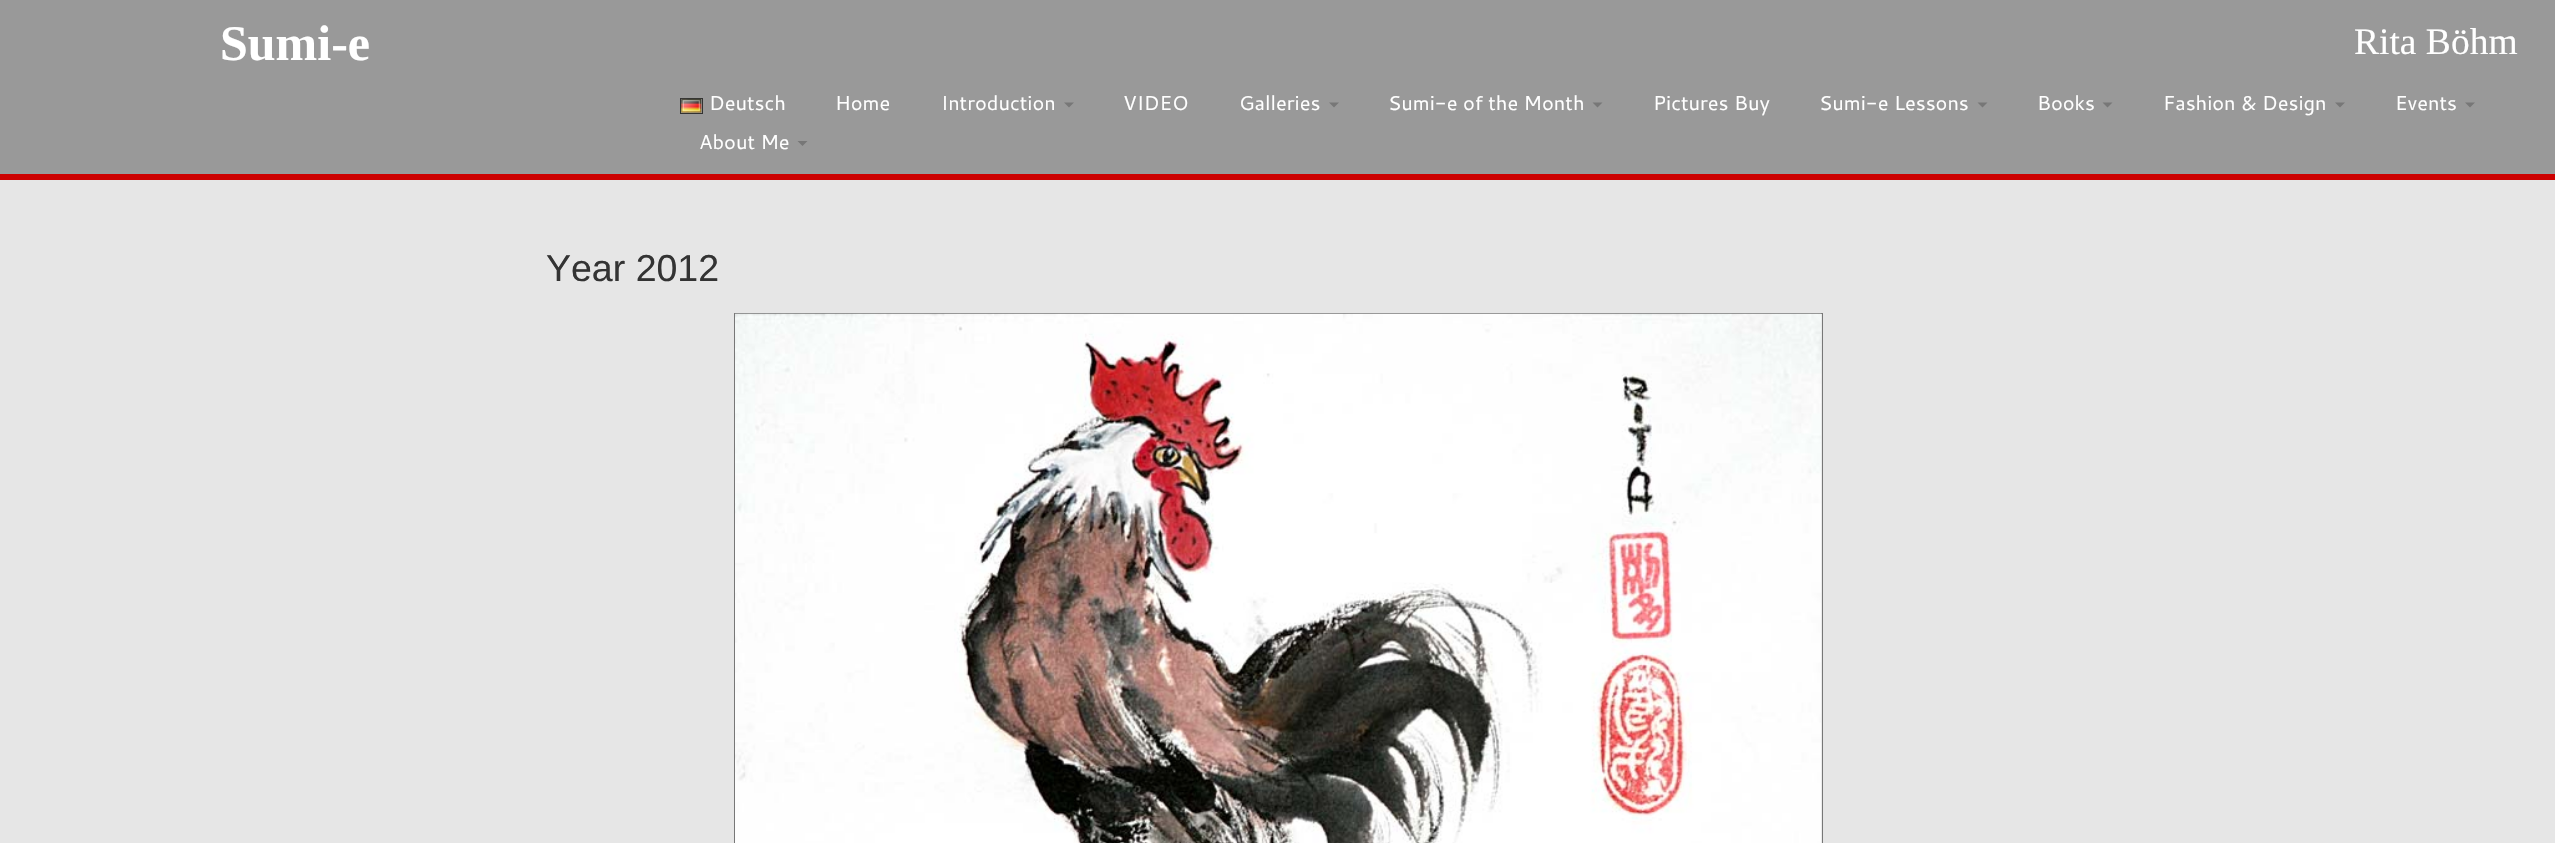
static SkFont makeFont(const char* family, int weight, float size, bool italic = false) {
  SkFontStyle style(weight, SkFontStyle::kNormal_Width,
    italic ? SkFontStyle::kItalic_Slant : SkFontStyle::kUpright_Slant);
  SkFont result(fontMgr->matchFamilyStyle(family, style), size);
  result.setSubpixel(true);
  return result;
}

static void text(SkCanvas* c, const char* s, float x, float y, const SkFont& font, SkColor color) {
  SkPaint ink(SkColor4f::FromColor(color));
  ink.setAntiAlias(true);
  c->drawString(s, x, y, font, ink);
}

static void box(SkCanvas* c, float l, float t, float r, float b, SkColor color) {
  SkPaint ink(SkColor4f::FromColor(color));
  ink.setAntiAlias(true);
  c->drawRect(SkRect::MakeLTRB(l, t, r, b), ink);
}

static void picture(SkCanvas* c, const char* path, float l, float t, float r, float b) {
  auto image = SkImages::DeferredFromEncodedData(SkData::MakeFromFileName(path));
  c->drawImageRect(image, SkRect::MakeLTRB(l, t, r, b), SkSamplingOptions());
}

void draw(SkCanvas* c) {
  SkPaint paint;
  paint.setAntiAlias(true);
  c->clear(0xffe6e6e6);
  box(c, 0, 0, 2555, 174, 0xff999999);
  box(c, 0, 174, 2555, 180, 0xffcc0000);
  SkFont face1 = makeFont("Liberation Serif", 700, 50);
  text(c, "Sumi-e", 220, 60, face1, 0xffffffff);
  SkFont face2 = makeFont("Liberation Serif", 400, 37.5f);
  text(c, "Rita Böhm", 2354, 54, face2, 0xffffffff);
  paint.setStyle(SkPaint::kStroke_Style);
  paint.setStrokeWidth(1);
  paint.setColor(0xff333333);
  c->drawRect(SkRect::MakeLTRB(680.5f, 98.5f, 702.5f, 113.5f), paint);
  SkFont face3 = makeFont("Cantarell", 400, 20);
  text(c, "Deutsch", 709, 110, face3, 0xffffffff);
  picture(c, "img_01.png", 681, 98, 702, 113);
  text(c, "Home", 835, 110, face3, 0xffffffff);
  text(c, "Introduction", 941, 110, face3, 0xffffffff);
  paint.setStyle(SkPaint::kFill_Style);
  paint.setColor(0xff777777);
  c->drawPath(SkPathBuilder().moveTo(1064, 102.5f).lineTo(1074, 102.5f).lineTo(1069, 107.5f).close().detach(), paint);
  text(c, "VIDEO", 1123, 110, face3, 0xffffffff);
  text(c, "Galleries", 1239, 110, face3, 0xffffffff);
  c->drawPath(SkPathBuilder().moveTo(1329, 102.5f).lineTo(1339, 102.5f).lineTo(1334, 107.5f).close().detach(), paint);
  text(c, "Sumi-e of the Month", 1388, 110, face3, 0xffffffff);
  c->drawPath(SkPathBuilder().moveTo(1592.5f, 102.5f).lineTo(1602.5f, 102.5f).lineTo(1597.5f, 107.5f).close().detach(), paint);
  text(c, "Pictures Buy", 1653, 110, face3, 0xffffffff);
  text(c, "Sumi-e Lessons", 1819, 110, face3, 0xffffffff);
  c->drawPath(SkPathBuilder().moveTo(1977.5f, 102.5f).lineTo(1987.5f, 102.5f).lineTo(1982.5f, 107.5f).close().detach(), paint);
  text(c, "Books", 2037, 110, face3, 0xffffffff);
  c->drawPath(SkPathBuilder().moveTo(2102.5f, 102.5f).lineTo(2112.5f, 102.5f).lineTo(2107.5f, 107.5f).close().detach(), paint);
  text(c, "Fashion & Design", 2163, 110, face3, 0xffffffff);
  c->drawPath(SkPathBuilder().moveTo(2335, 102.5f).lineTo(2345, 102.5f).lineTo(2340, 107.5f).close().detach(), paint);
  text(c, "Events", 2395, 110, face3, 0xffffffff);
  c->drawPath(SkPathBuilder().moveTo(2465, 102.5f).lineTo(2475, 102.5f).lineTo(2470, 107.5f).close().detach(), paint);
  text(c, "About Me", 699, 149, face3, 0xffffffff);
  c->drawPath(SkPathBuilder().moveTo(797.5f, 141).lineTo(807.5f, 141).lineTo(802.5f, 146).close().detach(), paint);
  SkFont face4 = makeFont("Liberation Sans", 400, 37.5f);
  text(c, "Year 2012", 546, 281, face4, 0xff333333);
  paint.setStyle(SkPaint::kStroke_Style);
  c->drawRect(SkRect::MakeLTRB(734.5f, 313.5f, 1822.5f, 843.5f), paint);
  picture(c, "img_02.png", 735, 313, 1822, 843);
}
